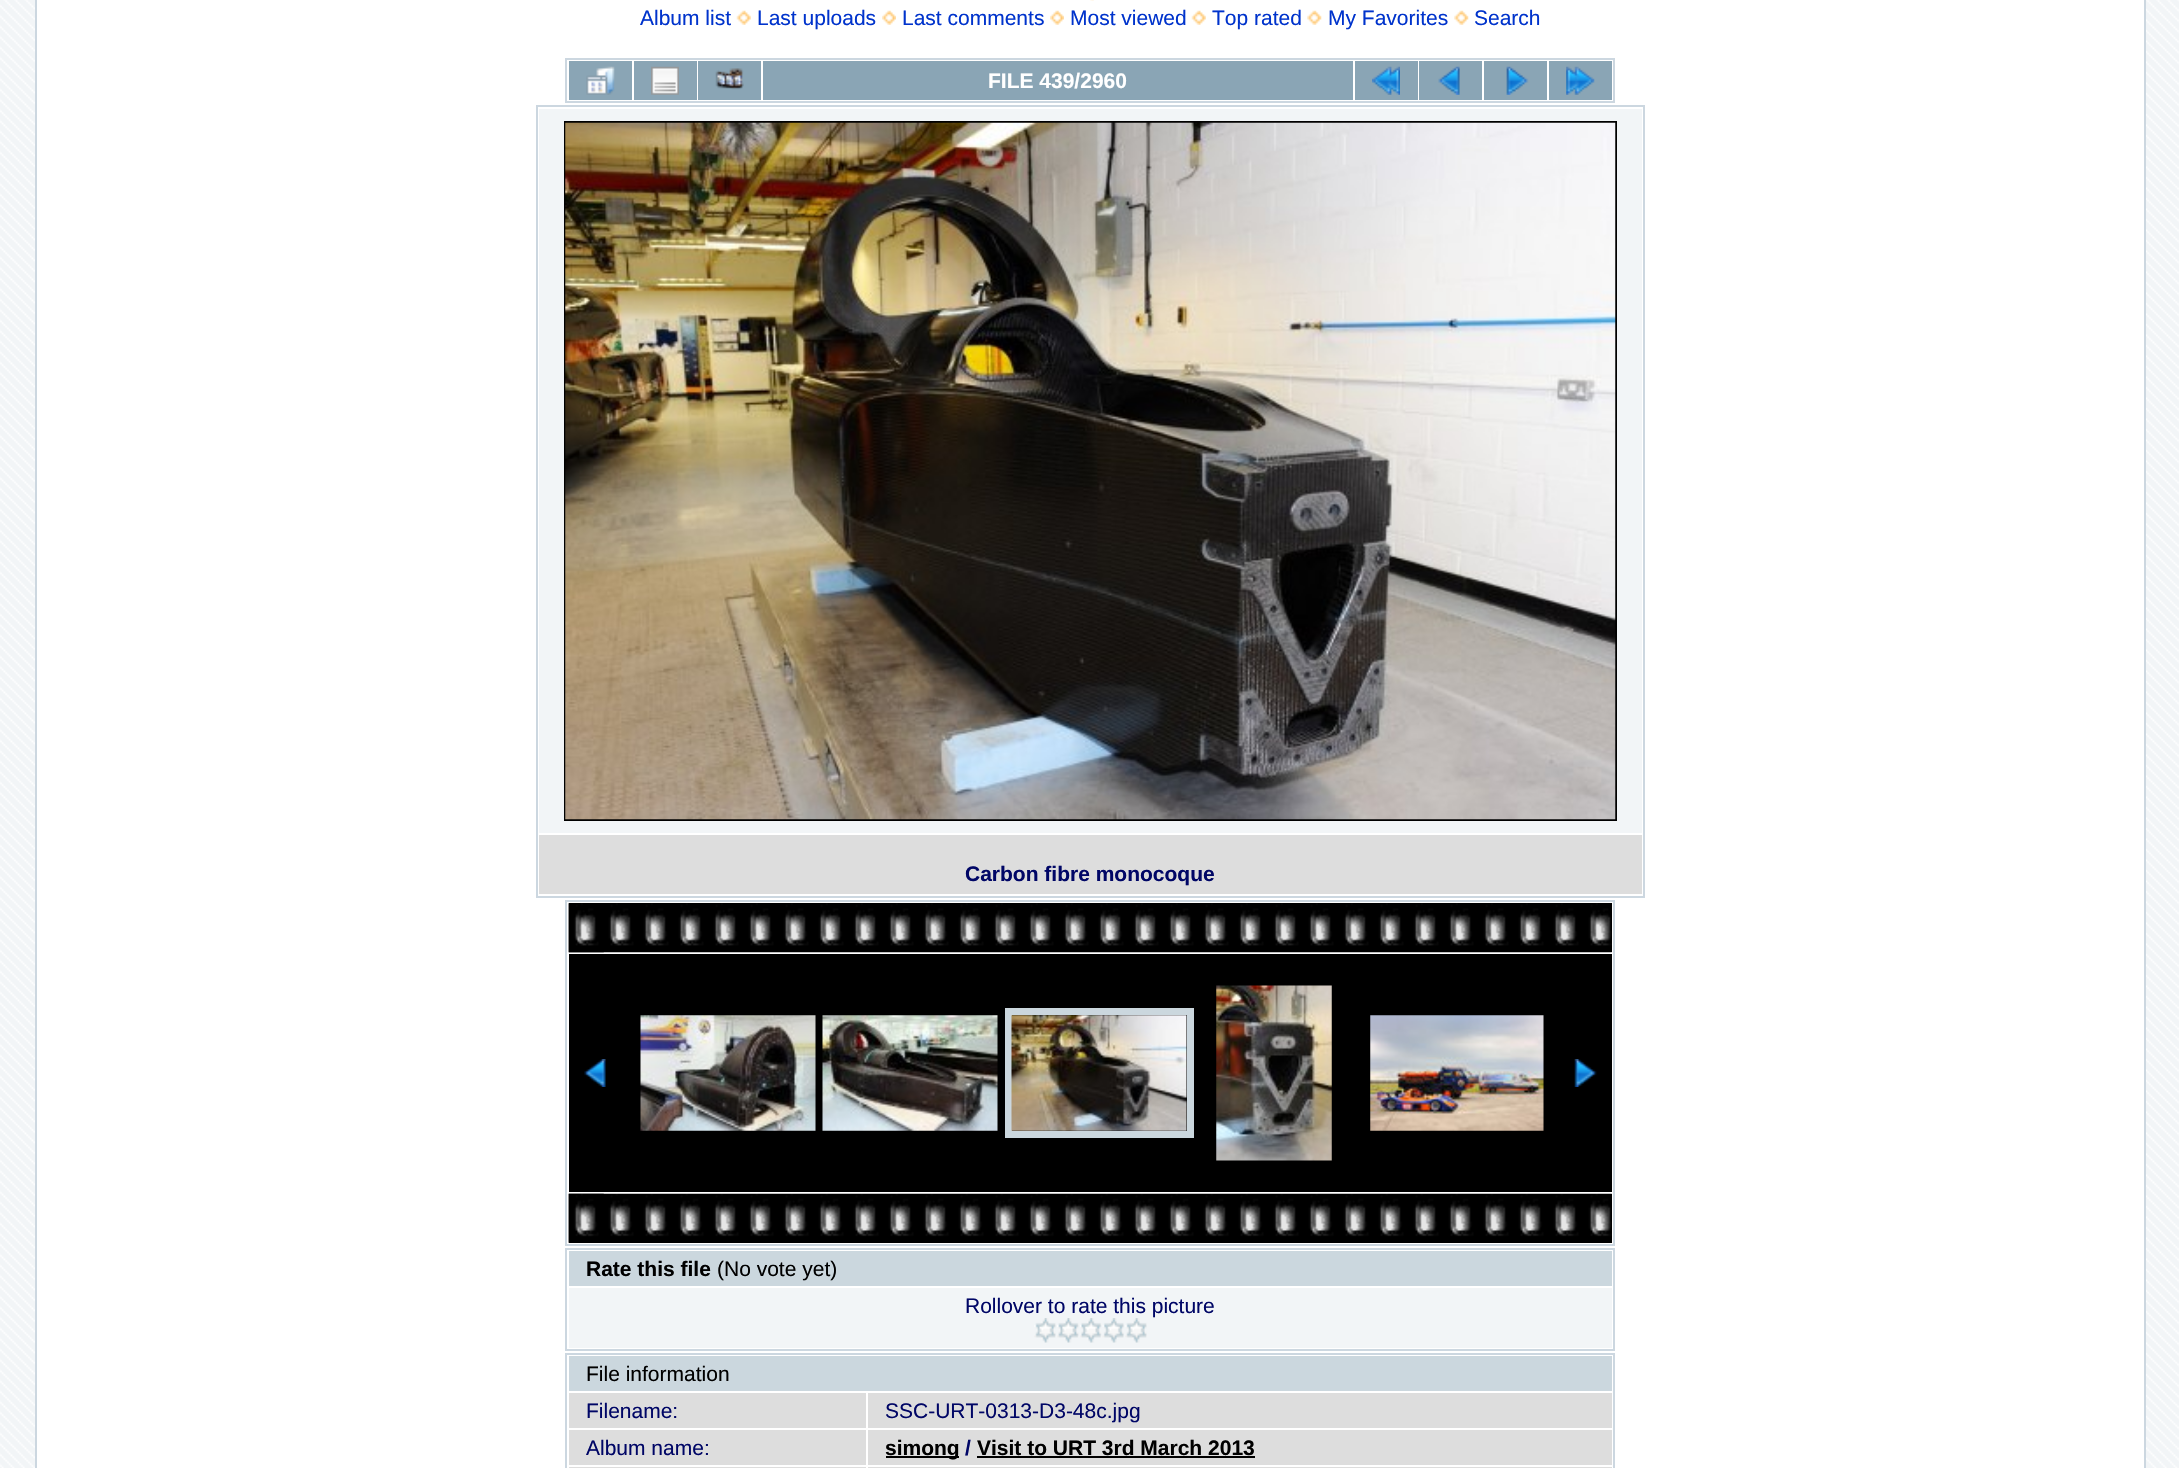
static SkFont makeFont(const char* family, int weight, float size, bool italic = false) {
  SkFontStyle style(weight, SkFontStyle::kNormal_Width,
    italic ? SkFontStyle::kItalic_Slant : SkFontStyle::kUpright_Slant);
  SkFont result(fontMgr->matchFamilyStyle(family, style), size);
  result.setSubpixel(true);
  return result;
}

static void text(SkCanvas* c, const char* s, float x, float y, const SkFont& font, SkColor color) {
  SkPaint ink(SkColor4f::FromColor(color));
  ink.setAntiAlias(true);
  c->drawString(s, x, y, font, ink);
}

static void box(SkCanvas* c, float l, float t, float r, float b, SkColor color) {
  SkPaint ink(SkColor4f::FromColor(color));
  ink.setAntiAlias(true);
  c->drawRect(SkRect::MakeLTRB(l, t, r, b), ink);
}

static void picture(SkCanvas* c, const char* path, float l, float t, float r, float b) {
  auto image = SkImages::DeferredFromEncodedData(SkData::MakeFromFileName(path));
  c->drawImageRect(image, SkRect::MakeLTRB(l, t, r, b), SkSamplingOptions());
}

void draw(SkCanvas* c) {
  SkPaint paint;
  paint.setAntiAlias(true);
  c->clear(0xfff2f5f7);
  picture(c, "img_01.png", 0, 0, 2179, 1468);
  paint.setColor(0xffffffff);
  c->drawRect(SkRect::MakeLTRB(36, -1, 2145, 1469), paint);
  paint.setStyle(SkPaint::kStroke_Style);
  paint.setStrokeWidth(2);
  paint.setColor(0xffccd7e0);
  c->drawRect(SkRect::MakeLTRB(36, -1, 2145, 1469), paint);
  picture(c, "img_02.png", 1090, 0, 1094, 1);
  SkFont face1 = makeFont("Liberation Sans", 400, 21);
  text(c, "Album list", 640, 25, face1, 0xff0033cc);
  picture(c, "img_03.png", 736, 10, 751, 25);
  text(c, "Last uploads", 757, 25, face1, 0xff0033cc);
  picture(c, "img_04.png", 882, 10, 896, 25);
  text(c, "Last comments", 902, 25, face1, 0xff0033cc);
  picture(c, "img_05.png", 1050, 10, 1064, 25);
  text(c, "Most viewed", 1070, 25, face1, 0xff0033cc);
  picture(c, "img_03.png", 1191, 10, 1206, 25);
  text(c, "Top rated", 1212, 25, face1, 0xff0033cc);
  picture(c, "img_06.png", 1307, 10, 1322, 25);
  text(c, "My Favorites", 1328, 25, face1, 0xff0033cc);
  picture(c, "img_06.png", 1454, 10, 1469, 25);
  text(c, "Search", 1474, 25, face1, 0xff0033cc);
  c->drawRect(SkRect::MakeLTRB(566, 59, 1614, 102), paint);
  box(c, 569, 61, 632, 100, 0xff8aa5b5);
  picture(c, "img_07.png", 586, 66, 615, 95);
  box(c, 634, 61, 697, 100, 0xff8aa5b5);
  picture(c, "img_08.png", 651, 66, 679, 95);
  box(c, 698, 61, 761, 100, 0xff8aa5b5);
  picture(c, "img_09.png", 715, 68, 744, 90);
  box(c, 763, 61, 1353, 100, 0xff8aa5b5);
  SkFont face2 = makeFont("Liberation Sans", 700, 21);
  text(c, "FILE 439/2960", 988, 88, face2, 0xffffffff);
  box(c, 1355, 61, 1418, 100, 0xff8aa5b5);
  picture(c, "img_10.png", 1372, 66, 1400, 95);
  box(c, 1419, 61, 1482, 100, 0xff8aa5b5);
  picture(c, "img_11.png", 1438, 66, 1460, 95);
  box(c, 1484, 61, 1547, 100, 0xff8aa5b5);
  picture(c, "img_12.png", 1506, 66, 1529, 95);
  box(c, 1549, 61, 1612, 100, 0xff8aa5b5);
  picture(c, "img_13.png", 1566, 66, 1595, 95);
  c->drawRect(SkRect::MakeLTRB(537, 106, 1644, 897), paint);
  box(c, 539, 109, 1642, 833, 0xfff2f5f7);
  paint.setColor(0xff000000);
  c->drawRect(SkRect::MakeLTRB(565, 122, 1616, 820), paint);
  picture(c, "img_14.png", 565, 122, 1616, 820);
  box(c, 539, 835, 1642, 894, 0xffdddddd);
  text(c, "Carbon fibre monocoque", 965, 881, face2, 0xff000666);
  paint.setColor(0xffccd7e0);
  c->drawRect(SkRect::MakeLTRB(566, 901, 1614, 1245), paint);
  box(c, 569, 903, 1612, 952, 0xff000000);
  picture(c, "img_15.png", 568, 903, 1612, 953);
  picture(c, "img_16.png", 568, 903, 604, 953);
  box(c, 569, 954, 1612, 1192, 0xff000000);
  picture(c, "img_17.png", 584, 1059, 606, 1087);
  picture(c, "img_18.png", 640, 1015, 816, 1131);
  picture(c, "img_19.png", 822, 1015, 998, 1131);
  paint.setStrokeWidth(7);
  paint.setColor(0xffcbd7de);
  c->drawRect(SkRect::MakeLTRB(1008.5f, 1011.5f, 1190.5f, 1134.5f), paint);
  picture(c, "img_20.png", 1011, 1015, 1187, 1131);
  picture(c, "img_21.png", 1216, 985, 1332, 1161);
  picture(c, "img_22.png", 1370, 1015, 1544, 1131);
  picture(c, "img_23.png", 1574, 1059, 1597, 1087);
  box(c, 569, 1194, 1612, 1243, 0xff000000);
  picture(c, "img_24.png", 568, 1193, 1612, 1243);
  picture(c, "img_25.png", 568, 1193, 604, 1243);
  paint.setStrokeWidth(2);
  paint.setColor(0xffccd7e0);
  c->drawRect(SkRect::MakeLTRB(566, 1249, 1614, 1350), paint);
  box(c, 569, 1251, 1612, 1286, 0xffcbd7de);
  text(c, "Rate this file", 586, 1276, face2, 0xff000000);
  text(c, "(No vote yet)", 717, 1276, face1, 0xff000000);
  box(c, 569, 1288, 1612, 1348, 0xfff2f5f7);
  text(c, "Rollover to rate this picture", 965, 1313, face1, 0xff000666);
  picture(c, "img_26.png", 1034, 1318, 1056, 1343);
  picture(c, "img_27.png", 1057, 1318, 1079, 1343);
  picture(c, "img_28.png", 1080, 1318, 1102, 1343);
  picture(c, "img_29.png", 1102, 1318, 1124, 1343);
  picture(c, "img_26.png", 1125, 1318, 1147, 1343);
  c->drawRect(SkRect::MakeLTRB(566, 1354, 1614, 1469), paint);
  box(c, 569, 1356, 1612, 1391, 0xffcbd7de);
  text(c, "File information", 586, 1381, face1, 0xff000000);
  box(c, 569, 1393, 866, 1428, 0xffdddddd);
  text(c, "Filename:", 586, 1418, face1, 0xff000666);
  box(c, 868, 1393, 1612, 1428, 0xffdddddd);
  text(c, "SSC-URT-0313-D3-48c.jpg", 885, 1418, face1, 0xff000666);
  box(c, 569, 1430, 866, 1465, 0xffdddddd);
  text(c, "Album name:", 586, 1455, face1, 0xff000666);
  box(c, 868, 1430, 1612, 1465, 0xffdddddd);
  box(c, 886, 1456, 959, 1458, 0xff000000);
  text(c, "simong", 885, 1455, face2, 0xff000000);
  text(c, "/", 965, 1455, face2, 0xff000666);
  text(c, "Visit to URT 3rd March 2013", 977, 1455, face2, 0xff000000);
  box(c, 977, 1456, 1255, 1458, 0xff000000);
  box(c, 569, 1467, 866, 1468, 0xffdddddd);
  box(c, 868, 1467, 1612, 1468, 0xffdddddd);
}
